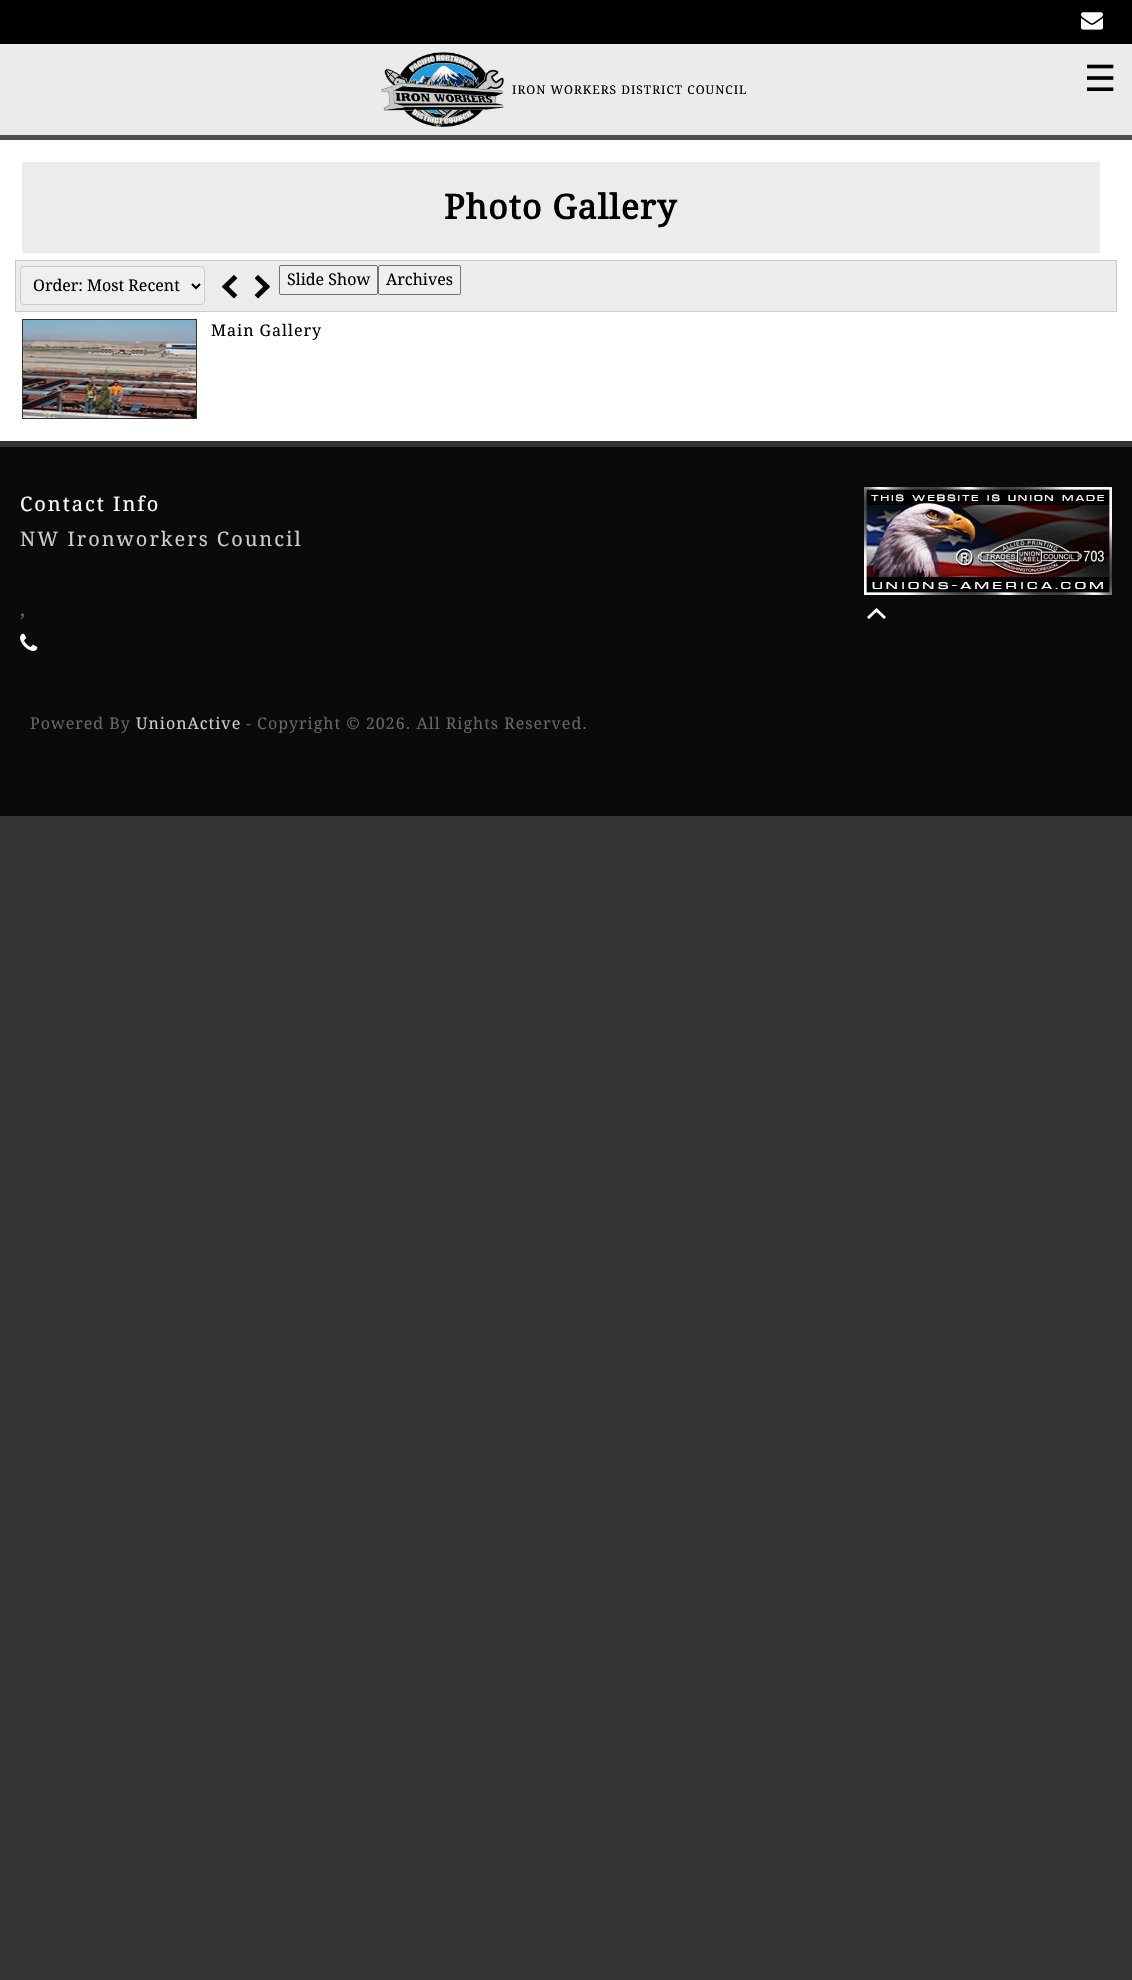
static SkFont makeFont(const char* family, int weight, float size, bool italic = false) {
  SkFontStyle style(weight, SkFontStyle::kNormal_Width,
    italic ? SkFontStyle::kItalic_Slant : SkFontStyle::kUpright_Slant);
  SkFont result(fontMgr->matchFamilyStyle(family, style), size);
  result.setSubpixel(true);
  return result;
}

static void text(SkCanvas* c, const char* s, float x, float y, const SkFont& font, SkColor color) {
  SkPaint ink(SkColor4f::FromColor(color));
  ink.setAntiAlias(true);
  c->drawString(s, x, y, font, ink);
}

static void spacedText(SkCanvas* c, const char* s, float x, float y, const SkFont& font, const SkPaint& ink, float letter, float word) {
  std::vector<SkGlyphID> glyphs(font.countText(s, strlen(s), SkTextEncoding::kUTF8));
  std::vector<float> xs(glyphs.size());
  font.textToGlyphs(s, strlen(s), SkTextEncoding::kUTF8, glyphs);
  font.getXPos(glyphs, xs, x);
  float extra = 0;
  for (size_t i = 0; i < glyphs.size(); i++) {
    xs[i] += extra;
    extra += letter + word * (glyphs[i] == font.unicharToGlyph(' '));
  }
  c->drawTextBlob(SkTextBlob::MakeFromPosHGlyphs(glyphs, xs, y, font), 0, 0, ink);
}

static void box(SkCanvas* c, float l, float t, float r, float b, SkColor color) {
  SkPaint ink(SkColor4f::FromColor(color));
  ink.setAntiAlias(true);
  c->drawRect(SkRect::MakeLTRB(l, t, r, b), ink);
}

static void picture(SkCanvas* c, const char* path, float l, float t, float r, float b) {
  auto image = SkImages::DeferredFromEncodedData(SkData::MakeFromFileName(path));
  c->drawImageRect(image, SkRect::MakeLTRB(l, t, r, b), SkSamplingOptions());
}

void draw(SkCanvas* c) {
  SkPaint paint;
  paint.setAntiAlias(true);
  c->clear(0xff333333);
  box(c, 0, 447, 1132, 816, 0xff0a0a0a);
  box(c, 0, 44, 1132, 135, 0xffebebeb);
  box(c, 0, 135, 1132, 140, 0xff534f4d);
  box(c, 0, 0, 1132, 44, 0xff000000);
  picture(c, "img_01.png", 1081, 12, 1103, 30);
  picture(c, "img_02.png", 381, 52, 504, 127);
  SkFont face1 = makeFont("Droid Serif", 400, 12);
  paint.setColor(0xff000000);
  spacedText(c, "IRON WORKERS DISTRICT COUNCIL", 512, 94, face1, paint, 1, 0);
  SkFont face2 = makeFont("DejaVu Sans", 400, 36);
  text(c, "☰", 1084, 91, face2, 0xff000000);
  box(c, 0, 140, 1132, 441, 0xffffffff);
  box(c, 22, 162, 1100, 253, 0xffececec);
  SkFont face3 = makeFont("Droid Serif", 700, 34);
  spacedText(c, "Photo Gallery", 444, 219, face3, paint, 1, 0);
  paint.setColor(0xffececec);
  c->drawRect(SkRect::MakeLTRB(15.5f, 260.5f, 1116.5f, 311.5f), paint);
  paint.setStyle(SkPaint::kStroke_Style);
  paint.setStrokeWidth(1);
  paint.setColor(0xffcccccc);
  c->drawRect(SkRect::MakeLTRB(15.5f, 260.5f, 1116.5f, 311.5f), paint);
  paint.setStyle(SkPaint::kFill_Style);
  paint.setColor(0xffefefef);
  c->drawRoundRect(SkRect::MakeLTRB(20.5f, 266.5f, 204.5f, 304.5f), 3.5f, 3.5f, paint);
  paint.setStyle(SkPaint::kStroke_Style);
  paint.setColor(0xffcccccc);
  c->drawRoundRect(SkRect::MakeLTRB(20.5f, 266.5f, 204.5f, 304.5f), 3.5f, 3.5f, paint);
  paint.setStrokeWidth(2);
  paint.setColor(0xff000000);
  c->drawPath(SkPathBuilder().moveTo(192, 284).lineTo(196, 288).lineTo(200, 284).detach(), paint);
  SkFont face4 = makeFont("Droid Serif", 400, 16);
  text(c, "Order: Most Recent", 33, 291, face4, 0xff000000);
  picture(c, "img_03.png", 221, 275, 238, 299);
  picture(c, "img_04.png", 254, 275, 271, 299);
  paint.setStyle(SkPaint::kFill_Style);
  paint.setColor(0xffefefef);
  c->drawRoundRect(SkRect::MakeLTRB(279.5f, 265.5f, 377.5f, 294.5f), 1.5f, 1.5f, paint);
  paint.setStyle(SkPaint::kStroke_Style);
  paint.setStrokeWidth(1);
  paint.setColor(0xff767676);
  c->drawRoundRect(SkRect::MakeLTRB(279.5f, 265.5f, 377.5f, 294.5f), 1.5f, 1.5f, paint);
  text(c, "Slide Show", 287, 285, face4, 0xff000000);
  paint.setStyle(SkPaint::kFill_Style);
  paint.setColor(0xffefefef);
  c->drawRoundRect(SkRect::MakeLTRB(378.5f, 265.5f, 460.5f, 294.5f), 1.5f, 1.5f, paint);
  paint.setStyle(SkPaint::kStroke_Style);
  paint.setColor(0xff767676);
  c->drawRoundRect(SkRect::MakeLTRB(378.5f, 265.5f, 460.5f, 294.5f), 1.5f, 1.5f, paint);
  text(c, "Archives", 386, 285, face4, 0xff000000);
  picture(c, "img_05.png", 23, 320, 196, 418);
  paint.setColor(0xff333333);
  c->drawRect(SkRect::MakeLTRB(22.5f, 319.5f, 196.5f, 418.5f), paint);
  paint.setStyle(SkPaint::kFill_Style);
  paint.setColor(0xff000000);
  spacedText(c, "Main Gallery", 211, 336, face4, paint, 1, 0);
  SkFont face5 = makeFont("Droid Serif", 400, 20);
  paint.setColor(0xffffffff);
  spacedText(c, "Contact Info", 20, 511, face5, paint, 2, 0);
  paint.setColor(0xffcccccc);
  spacedText(c, "NW Ironworkers Council", 20, 546, face5, paint, 2, 0);
  paint.setColor(0xff666666);
  spacedText(c, ",", 20, 616, face5, paint, 2, 0);
  picture(c, "img_06.png", 20, 633, 38, 651);
  picture(c, "img_07.png", 864, 487, 1112, 595);
  picture(c, "img_08.png", 867, 608, 886, 619);
  spacedText(c, "Powered By", 30, 729, face4, paint, 1, 0);
  paint.setColor(0xffcccccc);
  spacedText(c, "UnionActive", 136, 729, face4, paint, 1, 0);
  paint.setColor(0xff666666);
  spacedText(c, "- Copyright © 2026. All Rights Reserved.", 246, 729, face4, paint, 1, 0);
}
